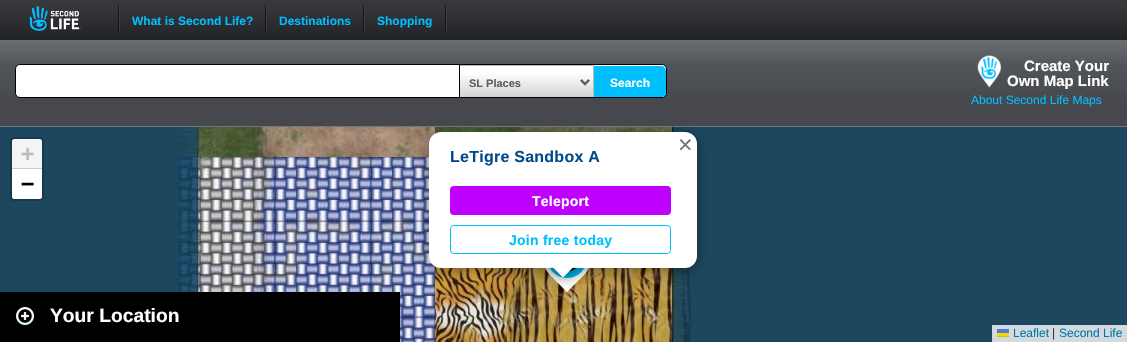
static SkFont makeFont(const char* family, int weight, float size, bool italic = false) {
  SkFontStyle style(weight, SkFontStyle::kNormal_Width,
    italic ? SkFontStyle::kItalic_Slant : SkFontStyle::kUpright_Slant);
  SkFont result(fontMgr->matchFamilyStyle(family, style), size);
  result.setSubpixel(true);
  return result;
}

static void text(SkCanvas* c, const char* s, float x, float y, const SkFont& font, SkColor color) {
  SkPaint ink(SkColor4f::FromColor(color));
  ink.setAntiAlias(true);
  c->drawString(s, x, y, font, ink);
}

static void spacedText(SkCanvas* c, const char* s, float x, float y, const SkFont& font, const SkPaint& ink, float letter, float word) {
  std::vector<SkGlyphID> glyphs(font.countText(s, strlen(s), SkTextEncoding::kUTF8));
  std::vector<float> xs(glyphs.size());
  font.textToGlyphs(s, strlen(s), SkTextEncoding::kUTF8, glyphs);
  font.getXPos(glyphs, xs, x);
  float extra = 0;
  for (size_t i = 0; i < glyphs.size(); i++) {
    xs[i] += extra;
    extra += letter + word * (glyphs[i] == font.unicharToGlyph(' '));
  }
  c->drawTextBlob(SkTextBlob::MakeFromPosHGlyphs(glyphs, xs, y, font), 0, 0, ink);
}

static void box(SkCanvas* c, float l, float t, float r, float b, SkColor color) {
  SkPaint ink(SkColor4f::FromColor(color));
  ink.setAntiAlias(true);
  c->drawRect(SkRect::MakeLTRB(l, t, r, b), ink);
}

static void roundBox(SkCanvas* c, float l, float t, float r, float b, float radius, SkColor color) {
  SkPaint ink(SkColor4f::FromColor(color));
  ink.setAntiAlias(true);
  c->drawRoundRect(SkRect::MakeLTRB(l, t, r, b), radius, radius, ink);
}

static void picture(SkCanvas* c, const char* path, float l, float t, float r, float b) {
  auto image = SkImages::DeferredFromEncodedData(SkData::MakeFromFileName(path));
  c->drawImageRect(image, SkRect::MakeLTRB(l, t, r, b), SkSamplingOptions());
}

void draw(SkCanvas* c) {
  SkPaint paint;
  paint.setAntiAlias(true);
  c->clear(0xff1d475f);
  picture(c, "img_01.png", 0, 0, 1127, 40);
  picture(c, "img_02.png", 29, 6, 81, 31);
  box(c, 119, 5, 120, 33, 0xff3a3e42);
  box(c, 118, 5, 119, 33, 0xff161616);
  SkFont face1 = makeFont("Liberation Sans", 700, 12);
  text(c, "What is Second Life?", 132, 25, face1, 0xff00bfff);
  box(c, 266, 5, 267, 33, 0xff3a3e42);
  box(c, 265, 5, 266, 33, 0xff161616);
  text(c, "Destinations", 279, 25, face1, 0xff00bfff);
  box(c, 364, 5, 365, 33, 0xff3a3e42);
  box(c, 363, 5, 364, 33, 0xff161616);
  text(c, "Shopping", 377, 25, face1, 0xff00bfff);
  box(c, 446, 5, 447, 33, 0xff3a3e42);
  box(c, 445, 5, 446, 33, 0xff161616);
  picture(c, "img_05.png", 179, 127, 435, 157);
  picture(c, "img_06.png", 435, 127, 691, 134);
  picture(c, "img_07.png", 179, 157, 435, 342);
  picture(c, "img_08.png", 435, 266, 691, 342);
  picture(c, "img_09.png", 545, 268, 589, 292);
  paint.setColor(0x66000000);
  paint.setMaskFilter(SkMaskFilter::MakeBlur(kNormal_SkBlurStyle, 7));
  c->drawRoundRect(SkRect::MakeLTRB(429, 135, 697, 271), 12, 12, paint);
  paint.setMaskFilter(nullptr);
  {
    const SkColor colors[] = {0xff47484d, 0xff515559, 0xff6b6e73};
    const float stops[] = {0.29f, 0.71f, 1};
    const SkPoint ends[] = {{0, 126}, {0, 40}};
    paint.setShader(SkGradientShader::MakeLinear(ends, colors, stops, 3, SkTileMode::kClamp));
    paint.setAlpha(255);
  }
  c->drawRect(SkRect::MakeLTRB(0, 40, 1127, 126), paint);
  box(c, 0, 126, 1127, 127, 0xff72777e);
  paint.setShader(nullptr);
  paint.setColor(0xffffffff);
  c->drawRoundRect(SkRect::MakeLTRB(15.5f, 64.5f, 666.5f, 97.5f), 4.5f, 4.5f, paint);
  paint.setStyle(SkPaint::kStroke_Style);
  paint.setStrokeWidth(1);
  paint.setColor(0xff000000);
  c->drawRoundRect(SkRect::MakeLTRB(15.5f, 64.5f, 666.5f, 97.5f), 4.5f, 4.5f, paint);
  picture(c, "img_03.png", 460, 66, 593, 97);
  box(c, 459, 65, 594, 66, 0xffbbbbbb);
  box(c, 593, 65, 594, 97, 0xffbbbbbb);
  box(c, 459, 65, 460, 97, 0xff000000);
  paint.setStrokeWidth(2);
  paint.setColor(0xff595c62);
  c->drawPath(SkPathBuilder().moveTo(581, 80).lineTo(585, 84).lineTo(589, 80).detach(), paint);
  SkFont face2 = makeFont("Liberation Sans", 700, 11);
  text(c, "SL Places", 469, 87, face2, 0xff595c62);
  c->save();
  c->clipPath(SkPathBuilder().moveTo(20, 65).lineTo(662, 65).cubicTo(664, 65, 666, 67, 666, 69).lineTo(666, 93).cubicTo(666, 95, 664, 97, 662, 97).lineTo(20, 97).cubicTo(18, 97, 16, 95, 16, 93).lineTo(16, 69).cubicTo(16, 67, 18, 65, 20, 65).close().detach(), true);
  paint.setStyle(SkPaint::kFill_Style);
  paint.setColor(0xff00bfff);
  c->drawPath(SkPathBuilder().moveTo(594, 66).lineTo(661, 66).cubicTo(664, 66, 666, 68, 666, 71).lineTo(666, 95).cubicTo(666, 98, 664, 100, 661, 100).lineTo(594, 100).close().detach(), paint);
  c->restore();
  text(c, "Search", 610, 87, face1, 0xffffffff);
  picture(c, "img_04.png", 977, 55, 1002, 88);
  SkFont face3 = makeFont("Liberation Sans", 700, 15);
  text(c, "Create Your", 1024, 71, face3, 0xffffffff);
  text(c, "Own Map Link", 1007, 86, face3, 0xffffffff);
  SkFont face4 = makeFont("Liberation Sans", 400, 12);
  text(c, "About Second Life Maps", 971, 104, face4, 0xff00bfff);
  roundBox(c, 429, 132, 697, 268, 12, 0xffffffff);
  SkFont face5 = makeFont("Liberation Sans", 400, 25);
  text(c, "×", 678, 153, face5, 0xff757575);
  SkFont face6 = makeFont("Liberation Sans", 700, 16);
  paint.setColor(0xff014a8e);
  spacedText(c, "LeTigre Sandbox A", 450, 162, face6, paint, 0.25f, 0);
  roundBox(c, 450, 186, 671, 215, 4, 0xffbf00ff);
  SkFont face7 = makeFont("Liberation Sans", 700, 14);
  paint.setColor(0xffffffff);
  spacedText(c, "Teleport", 532, 206, face7, paint, 0.25f, 0);
  paint.setStyle(SkPaint::kStroke_Style);
  paint.setStrokeWidth(1);
  paint.setColor(0xff00bfff);
  c->drawRoundRect(SkRect::MakeLTRB(450.5f, 225.5f, 670.5f, 253.5f), 3.5f, 3.5f, paint);
  paint.setStyle(SkPaint::kFill_Style);
  spacedText(c, "Join free today", 509, 245, face7, paint, 0.25f, 0);
  c->save();
  c->clipRect(SkRect::MakeLTRB(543, 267, 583, 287));
  paint.setColor(0x66000000);
  paint.setMaskFilter(SkMaskFilter::MakeBlur(kNormal_SkBlurStyle, 7));
  c->drawRect(SkRect::MakeLTRB(555, 260, 572, 277), paint);
  paint.setMaskFilter(nullptr);
  c->restore();
  c->save();
  c->clipRect(SkRect::MakeLTRB(543, 267, 583, 287));
  paint.setColor(0xffffffff);
  c->drawPath(SkPathBuilder().moveTo(563, 253.5f).lineTo(575, 265.5f).lineTo(563, 277.5f).lineTo(551, 265.5f).close().detach(), paint);
  c->restore();
  paint.setStyle(SkPaint::kStroke_Style);
  paint.setStrokeWidth(2);
  paint.setColor(0xff17394c);
  c->drawRoundRect(SkRect::MakeLTRB(11, 138, 43, 200), 3, 3, paint);
  paint.setStyle(SkPaint::kFill_Style);
  paint.setColor(0xfff4f4f4);
  c->drawPath(SkPathBuilder().moveTo(14, 139).lineTo(40, 139).cubicTo(41, 139, 42, 140, 42, 141).lineTo(42, 169).lineTo(12, 169).lineTo(12, 141).cubicTo(12, 140, 13, 139, 14, 139).close().detach(), paint);
  box(c, 12, 168, 42, 169, 0xffcccccc);
  SkFont face8 = makeFont("DejaVu Sans Mono", 700, 22);
  text(c, "+", 21, 161, face8, 0xffbbbbbb);
  paint.setColor(0xffffffff);
  c->drawPath(SkPathBuilder().moveTo(12, 169).lineTo(42, 169).lineTo(42, 197).cubicTo(42, 198, 41, 199, 40, 199).lineTo(14, 199).cubicTo(13, 199, 12, 198, 12, 197).close().detach(), paint);
  text(c, "−", 21, 191, face8, 0xff000000);
  box(c, 992, 325, 1127, 342, 0xffd2dadf);
  text(c, "Leaflet", 1013, 337, face4, 0xff0078a8);
  box(c, 997, 329, 1009, 333, 0xff4c7be1);
  box(c, 997, 333, 1009, 336, 0xffffd500);
  box(c, 997, 336, 1009, 337, 0xffe0bc00);
  text(c, "|", 1052, 337, face4, 0xff333333);
  text(c, "Second Life", 1059, 337, face4, 0xff0078a8);
  box(c, 0, 292, 400, 342, 0xff000000);
  picture(c, "img_10.png", 16, 307, 34, 325);
  SkFont face9 = makeFont("Liberation Sans", 700, 19.25f);
  text(c, "Your Location", 50, 322, face9, 0xffffffff);
}
